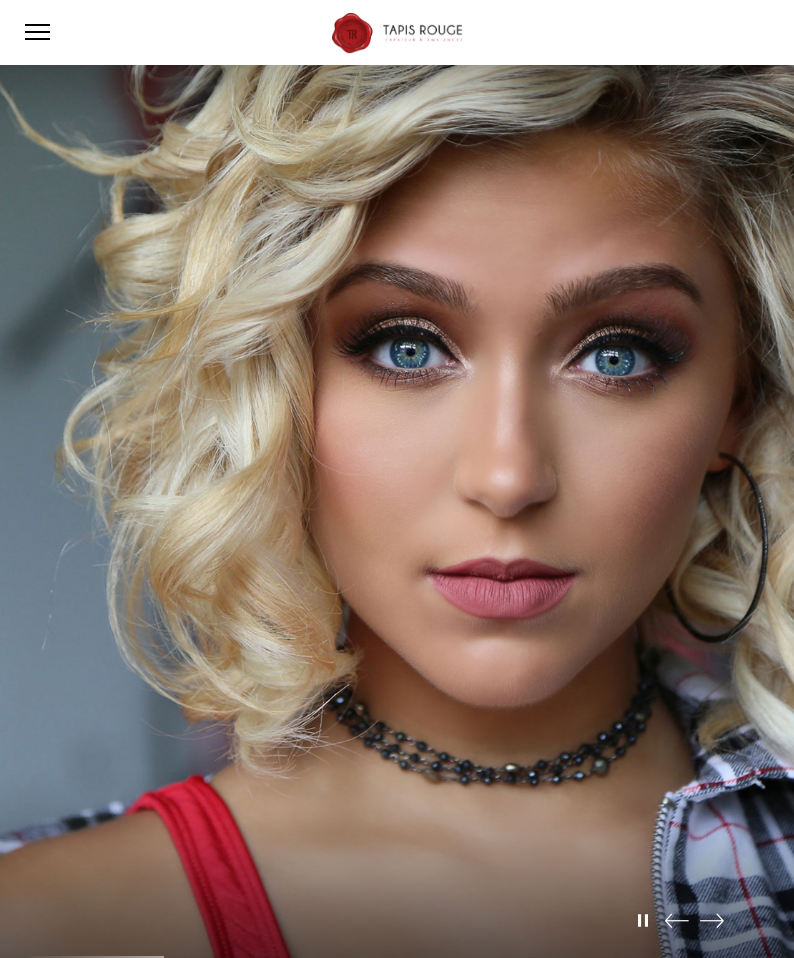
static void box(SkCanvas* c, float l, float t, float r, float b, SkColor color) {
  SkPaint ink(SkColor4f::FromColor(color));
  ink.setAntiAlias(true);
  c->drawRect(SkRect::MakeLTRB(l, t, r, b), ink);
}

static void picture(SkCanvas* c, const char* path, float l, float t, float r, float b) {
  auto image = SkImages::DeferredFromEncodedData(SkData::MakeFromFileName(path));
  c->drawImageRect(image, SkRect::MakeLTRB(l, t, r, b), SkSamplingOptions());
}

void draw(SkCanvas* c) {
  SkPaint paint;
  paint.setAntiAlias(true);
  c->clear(0xffffffff);
  box(c, 25, 31, 50, 33, 0xff000000);
  box(c, 25, 24, 50, 26, 0xff000000);
  box(c, 25, 38, 50, 40, 0xff000000);
  picture(c, "img_01.png", 332, 13, 462, 54);
  picture(c, "img_03.png", 0, 957, 794, 958);
  picture(c, "img_02.png", 0, 65, 794, 958);
  picture(c, "img_04.png", 638, 914, 648, 927);
  picture(c, "img_05.png", 665, 913, 689, 928);
  picture(c, "img_06.png", 700, 913, 724, 928);
  {
    const SkColor colors[] = {0x00ffffff, 0x00ffffff, 0x80ffffff};
    const float stops[] = {0, 0.82f, 1};
    const SkPoint ends[] = {{-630, 957}, {164, 957}};
    paint.setShader(SkGradientShader::MakeLinear(ends, colors, stops, 3, SkTileMode::kClamp));
    paint.setAlpha(255);
  }
  c->drawRect(SkRect::MakeLTRB(27, 956, 164, 958), paint);
}
